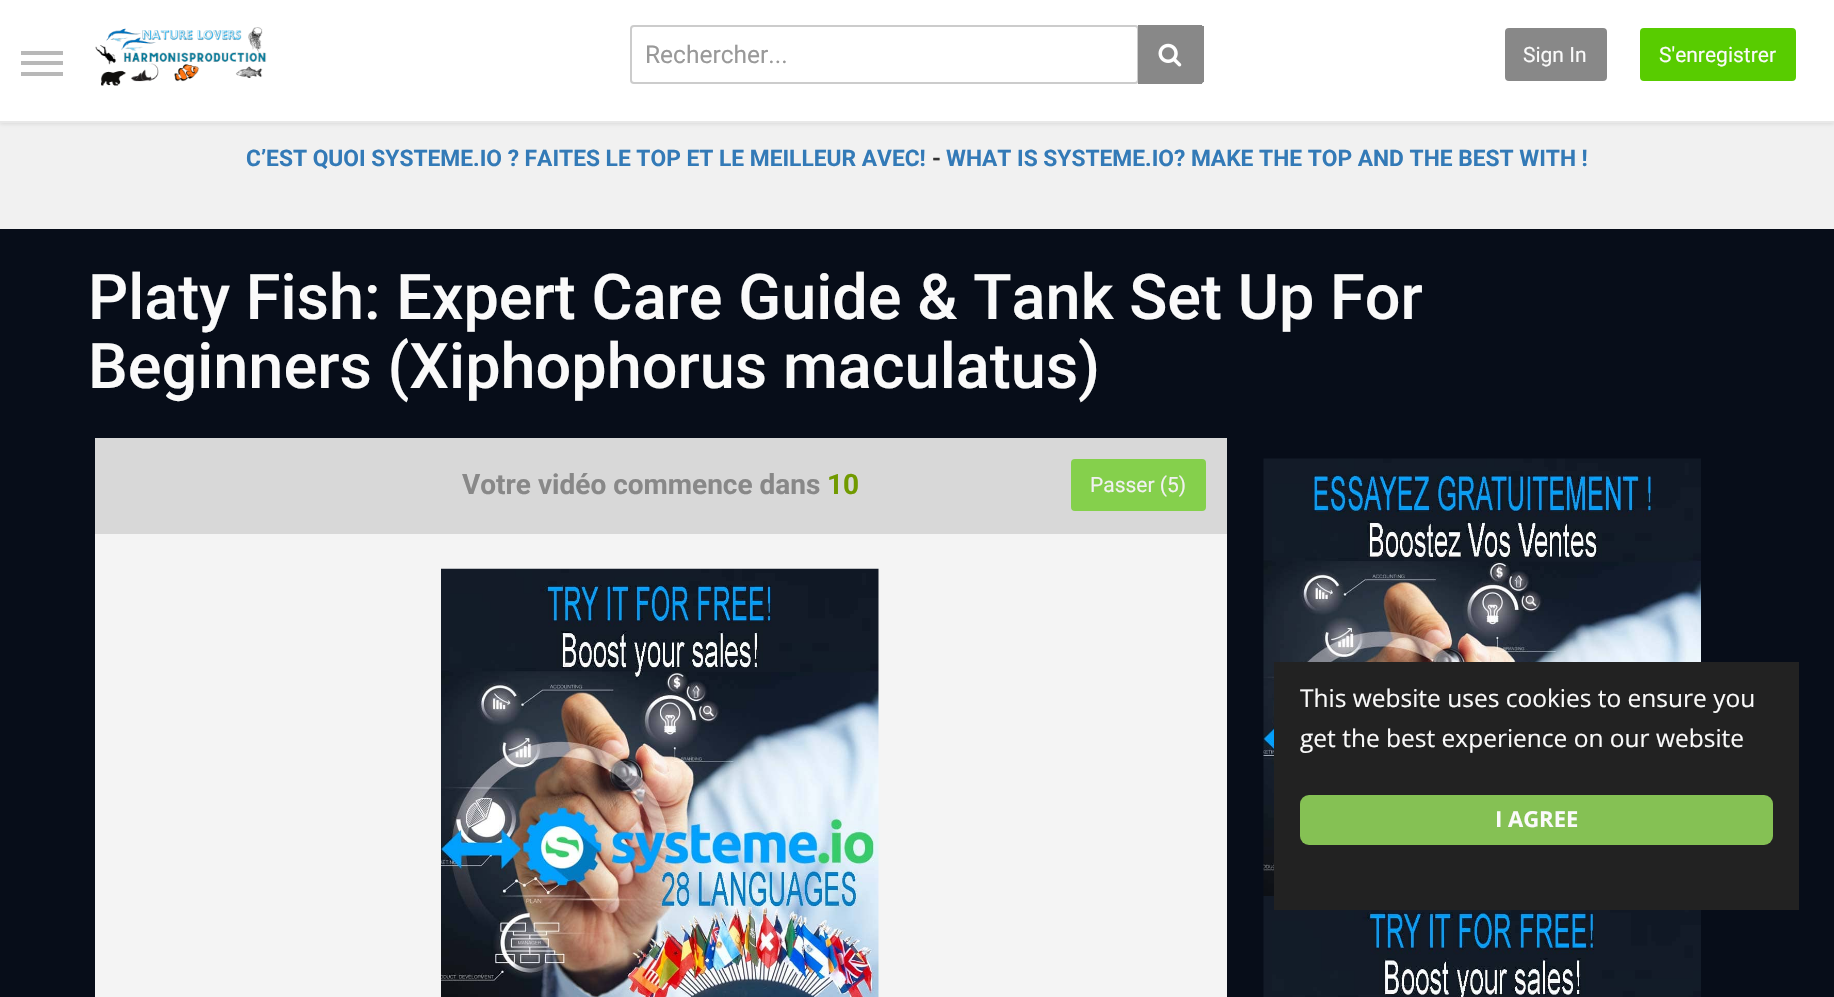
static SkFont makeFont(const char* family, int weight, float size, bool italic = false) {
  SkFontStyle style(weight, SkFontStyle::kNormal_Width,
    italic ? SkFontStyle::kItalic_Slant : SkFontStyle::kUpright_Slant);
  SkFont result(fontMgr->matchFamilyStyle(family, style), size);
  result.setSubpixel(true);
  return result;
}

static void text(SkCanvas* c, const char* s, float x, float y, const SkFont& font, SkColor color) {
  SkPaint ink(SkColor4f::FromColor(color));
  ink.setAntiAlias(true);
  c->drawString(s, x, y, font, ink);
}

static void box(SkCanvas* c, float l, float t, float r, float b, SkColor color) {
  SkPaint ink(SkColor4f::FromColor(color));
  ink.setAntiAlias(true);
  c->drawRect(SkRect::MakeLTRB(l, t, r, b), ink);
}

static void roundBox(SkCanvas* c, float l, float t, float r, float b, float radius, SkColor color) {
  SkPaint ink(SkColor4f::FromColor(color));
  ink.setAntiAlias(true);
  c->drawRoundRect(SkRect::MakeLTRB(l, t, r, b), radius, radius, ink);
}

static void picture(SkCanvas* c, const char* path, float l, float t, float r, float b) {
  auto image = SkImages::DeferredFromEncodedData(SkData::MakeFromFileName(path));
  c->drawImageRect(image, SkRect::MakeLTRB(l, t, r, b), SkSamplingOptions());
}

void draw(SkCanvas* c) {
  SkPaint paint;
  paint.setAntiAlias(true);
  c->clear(0xfff1f1f1);
  paint.setColor(0x1a000000);
  paint.setMaskFilter(SkMaskFilter::MakeBlur(kNormal_SkBlurStyle, 2));
  c->drawRect(SkRect::MakeLTRB(0, 2, 1834, 124), paint);
  paint.setMaskFilter(nullptr);
  box(c, 0, 0, 1834, 121, 0xffffffff);
  box(c, 0, 121, 1834, 123, 0xffe8e8e8);
  box(c, 21, 61, 63, 65, 0xffb8b8b8);
  box(c, 21, 51, 63, 55, 0xffb8b8b8);
  box(c, 21, 72, 63, 76, 0xffb8b8b8);
  picture(c, "img_01.png", 95, 27, 267, 86);
  paint.setStyle(SkPaint::kStroke_Style);
  paint.setStrokeWidth(2);
  paint.setColor(0xffcccccc);
  c->drawRoundRect(SkRect::MakeLTRB(631, 26, 1138, 83), 3, 3, paint);
  SkFont face1 = makeFont("Roboto", 400, 24.5f);
  text(c, "Rechercher...", 645, 63, face1, 0xff999999);
  paint.setStyle(SkPaint::kFill_Style);
  paint.setColor(0xff888888);
  c->drawPath(SkPathBuilder().moveTo(1138, 25).lineTo(1200, 25).cubicTo(1202, 25, 1204, 27, 1204, 29).lineTo(1204, 80).cubicTo(1204, 82, 1202, 84, 1200, 84).lineTo(1138, 84).close().detach(), paint);
  box(c, 1200, 25, 1202, 26, 0xff888888);
  box(c, 1202, 26, 1204, 82, 0xff888888);
  box(c, 1200, 83, 1202, 84, 0xff888888);
  picture(c, "img_02.png", 1158, 43, 1182, 67);
  c->drawRoundRect(SkRect::MakeLTRB(1506, 29, 1606, 80), 3, 3, paint);
  paint.setStyle(SkPaint::kStroke_Style);
  c->drawRoundRect(SkRect::MakeLTRB(1506, 29, 1606, 80), 3, 3, paint);
  SkFont face2 = makeFont("Roboto", 400, 21);
  text(c, "Sign In", 1523, 62, face2, 0xfffafafa);
  paint.setStyle(SkPaint::kFill_Style);
  paint.setColor(0xff58cc00);
  c->drawRoundRect(SkRect::MakeLTRB(1641, 29, 1795, 80), 3, 3, paint);
  paint.setStyle(SkPaint::kStroke_Style);
  c->drawRoundRect(SkRect::MakeLTRB(1641, 29, 1795, 80), 3, 3, paint);
  text(c, "S'enregistrer", 1659, 62, face2, 0xfffafafa);
  SkFont face3 = makeFont("Roboto", 700, 22.75f);
  text(c, "C’EST QUOI SYSTEME.IO ? FAITES LE TOP ET LE MEILLEUR AVEC!", 246, 166, face3, 0xff337ab7);
  text(c, "-", 932, 166, face3, 0xff333333);
  text(c, "WHAT IS SYSTEME.IO? MAKE THE TOP AND THE BEST WITH !", 946, 166, face3, 0xff337ab7);
  box(c, 0, 229, 1834, 997, 0xff070d19);
  SkFont face4 = makeFont("Roboto", 500, 63);
  text(c, "Platy Fish: Expert Care Guide & Tank Set Up For", 88, 319, face4, 0xfffafafa);
  text(c, "Beginners (Xiphophorus maculatus)", 88, 388, face4, 0xfffafafa);
  box(c, 95, 534, 1227, 997, 0xfff4f4f4);
  box(c, 95, 438, 1227, 534, 0xffd8d8d8);
  SkFont face5 = makeFont("Roboto", 700, 28);
  text(c, "Votre vidéo commence dans", 462, 494, face5, 0xff888888);
  text(c, "10", 827, 494, face5, 0xff719a00);
  paint.setStyle(SkPaint::kFill_Style);
  paint.setColor(0xff85d04c);
  c->drawRoundRect(SkRect::MakeLTRB(1072, 460, 1205, 510), 3, 3, paint);
  paint.setStyle(SkPaint::kStroke_Style);
  c->drawRoundRect(SkRect::MakeLTRB(1072, 460, 1205, 510), 3, 3, paint);
  text(c, "Passer (5)", 1090, 492, face2, 0xfff1f1f1);
  picture(c, "img_03.png", 441, 568, 879, 997);
  picture(c, "img_04.png", 1263, 458, 1701, 896);
  picture(c, "img_05.png", 1263, 896, 1701, 997);
  box(c, 1274, 662, 1799, 910, 0xff222222);
  SkFont face6 = makeFont("Open Sans", 400, 24.5f);
  text(c, "This website uses cookies to ensure you", 1300, 707, face6, 0xfffafafa);
  text(c, "get the best experience on our website", 1300, 747, face6, 0xfffafafa);
  roundBox(c, 1300, 795, 1773, 845, 9, 0xff85c154);
  SkFont face7 = makeFont("Open Sans", 700, 22);
  text(c, "I AGREE", 1495, 827, face7, 0xfffafafa);
}
